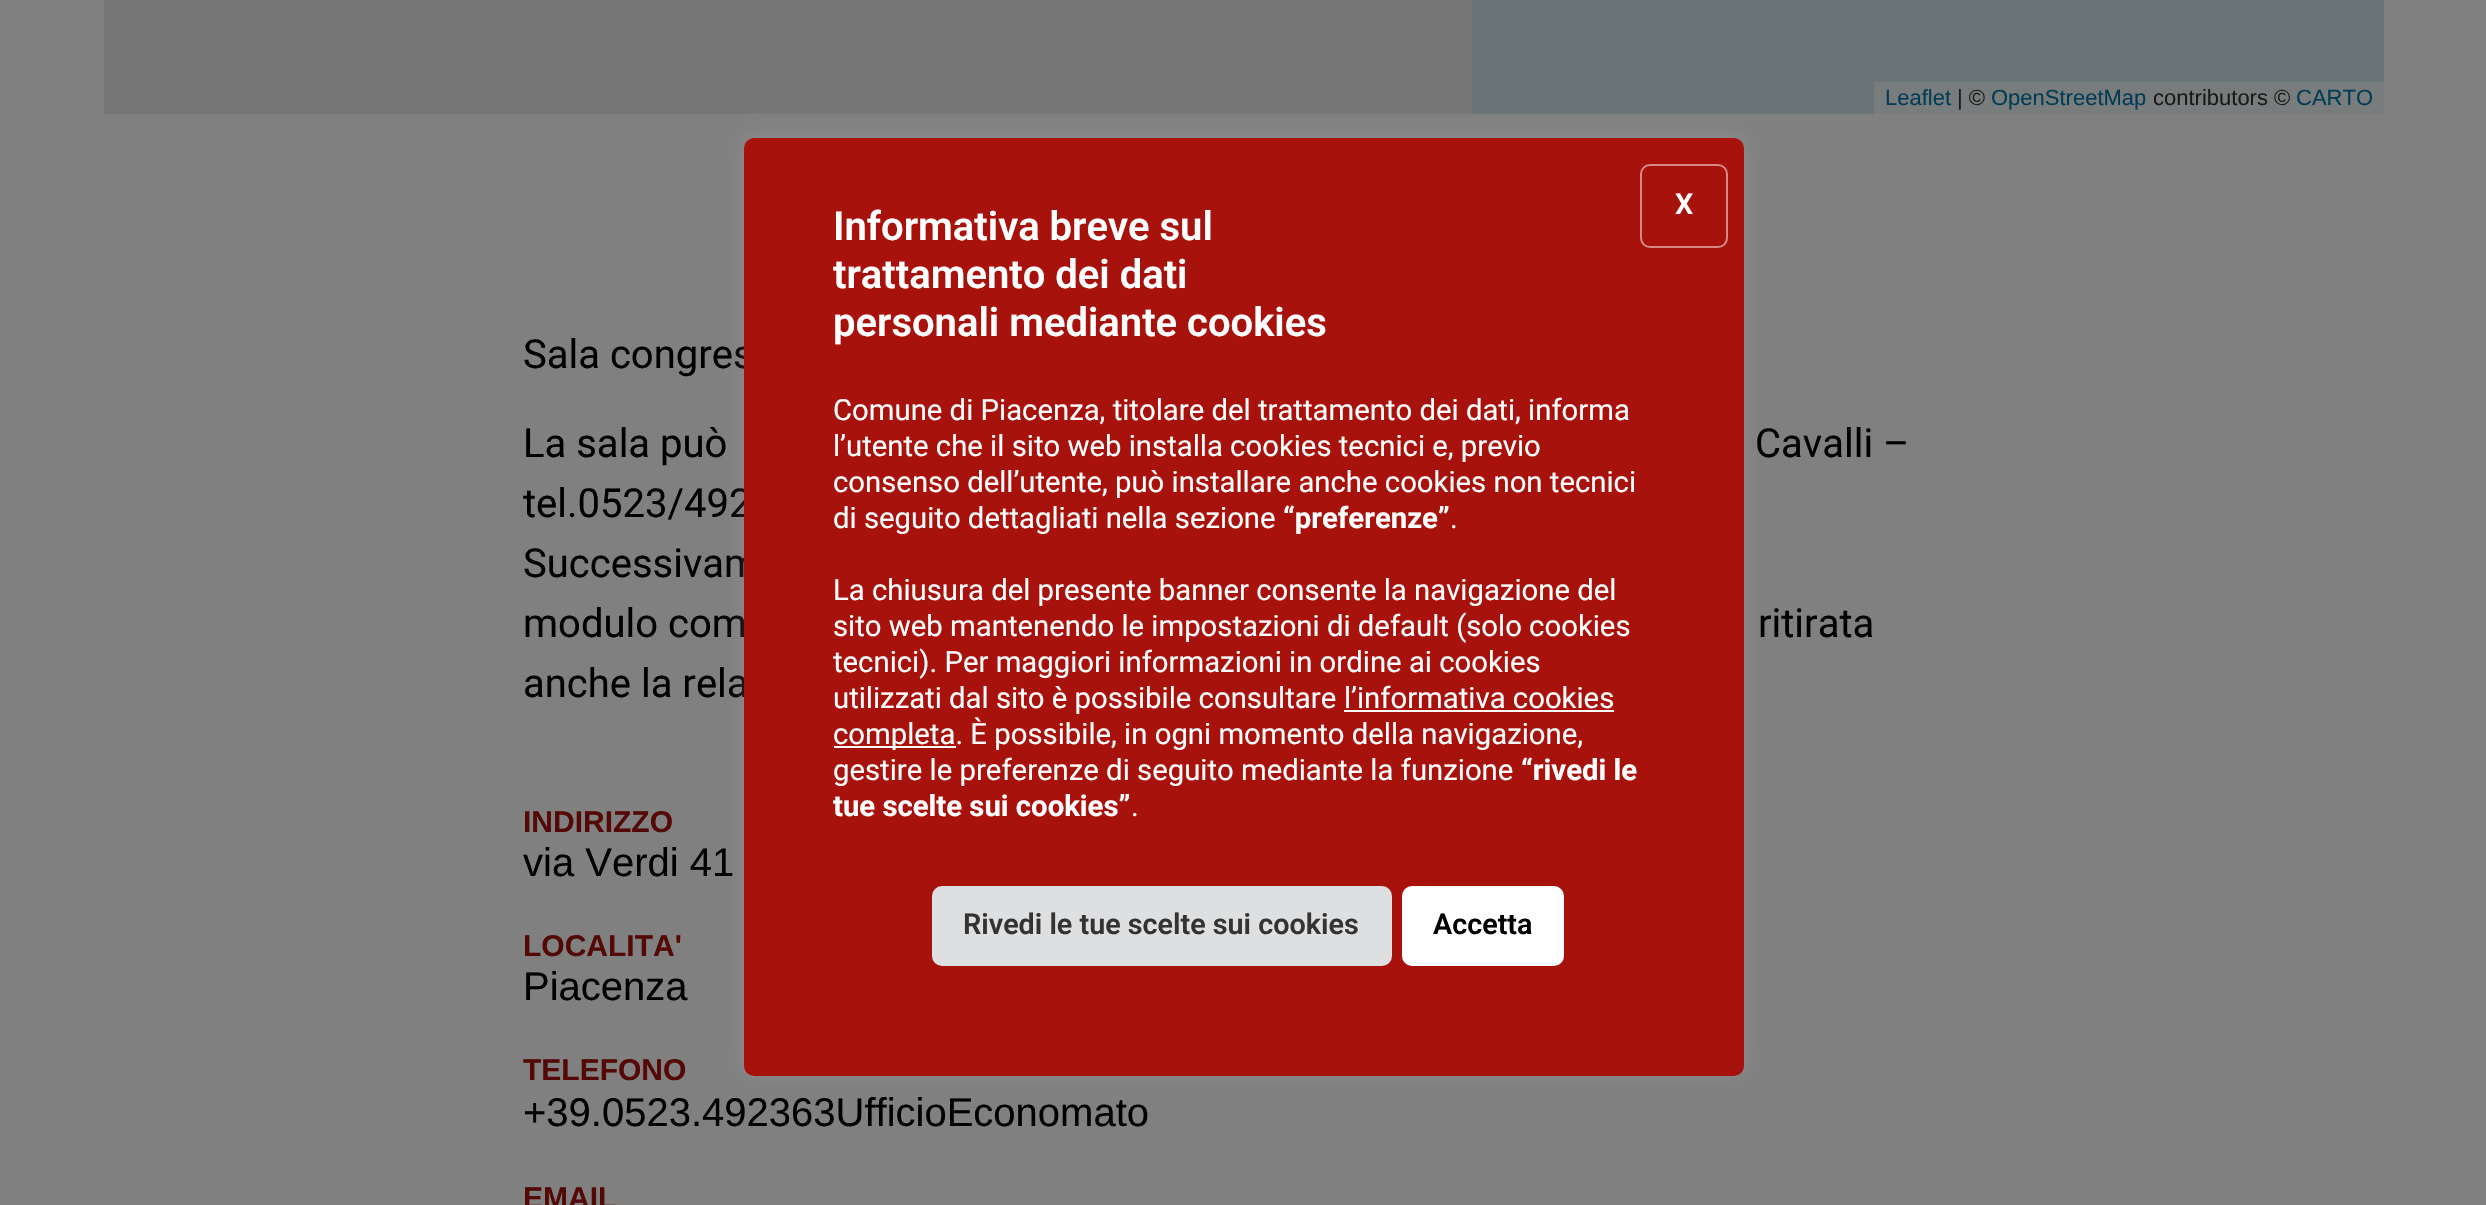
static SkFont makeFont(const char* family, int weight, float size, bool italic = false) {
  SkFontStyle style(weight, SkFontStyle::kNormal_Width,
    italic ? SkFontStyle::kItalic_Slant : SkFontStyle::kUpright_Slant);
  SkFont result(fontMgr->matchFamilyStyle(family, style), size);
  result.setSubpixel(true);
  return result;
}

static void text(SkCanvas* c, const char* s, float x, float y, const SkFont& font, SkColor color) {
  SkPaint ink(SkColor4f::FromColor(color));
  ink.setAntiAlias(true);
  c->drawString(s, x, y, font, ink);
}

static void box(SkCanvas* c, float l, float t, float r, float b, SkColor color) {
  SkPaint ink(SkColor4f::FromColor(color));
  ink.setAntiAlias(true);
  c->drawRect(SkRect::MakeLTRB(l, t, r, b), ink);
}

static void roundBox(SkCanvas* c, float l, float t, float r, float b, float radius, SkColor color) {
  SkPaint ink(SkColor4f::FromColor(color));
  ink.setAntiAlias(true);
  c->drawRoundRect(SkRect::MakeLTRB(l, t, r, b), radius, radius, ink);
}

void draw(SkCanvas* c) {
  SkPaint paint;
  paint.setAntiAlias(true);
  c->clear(0xff808080);
  box(c, 104, 0, 1472, 114, 0xff767676);
  box(c, 1472, 0, 1928, 114, 0xff6b7476);
  box(c, 1928, 0, 2384, 82, 0xff6b7476);
  box(c, 1874, 82, 2384, 114, 0xff797c7d);
  SkFont face1 = makeFont("Liberation Sans", 400, 22);
  text(c, "Leaflet", 1885, 105, face1, 0xff003c54);
  text(c, "| ©", 1957, 105, face1, 0xff1a1a1a);
  text(c, "OpenStreetMap", 1991, 105, face1, 0xff003c54);
  text(c, "contributors ©", 2153, 105, face1, 0xff1a1a1a);
  text(c, "CARTO", 2296, 105, face1, 0xff003c54);
  SkFont face2 = makeFont("Roboto", 400, 40);
  text(c, "Sala congres", 523, 368, face2, 0xff000000);
  text(c, "La sala può", 523, 457, face2, 0xff000000);
  text(c, "Cavalli –", 1755, 457, face2, 0xff000000);
  text(c, "tel.0523/492", 523, 517, face2, 0xff000000);
  text(c, "Successivam", 523, 577, face2, 0xff000000);
  text(c, "modulo com", 523, 637, face2, 0xff000000);
  text(c, "ritirata", 1758, 637, face2, 0xff000000);
  text(c, "anche la rela", 523, 697, face2, 0xff000000);
  SkFont face3 = makeFont("Liberation Sans", 700, 30);
  text(c, "INDIRIZZO", 523, 832, face3, 0xff540906);
  SkFont face4 = makeFont("Liberation Sans", 400, 40);
  text(c, "via Verdi 41", 523, 876, face4, 0xff000000);
  text(c, "LOCALITA'", 523, 956, face3, 0xff540906);
  text(c, "Piacenza", 523, 1000, face4, 0xff000000);
  text(c, "TELEFONO", 523, 1080, face3, 0xff540906);
  text(c, "+39.0523.492363UfficioEconomato", 523, 1126, face4, 0xff000000);
  text(c, "EMAIL", 523, 1208, face3, 0xff540906);
  paint.setColor(0x4dacabab);
  paint.setMaskFilter(SkMaskFilter::MakeBlur(kNormal_SkBlurStyle, 10));
  c->drawRoundRect(SkRect::MakeLTRB(744, 136, 1744, 1074), 10, 10, paint);
  paint.setMaskFilter(nullptr);
  roundBox(c, 744, 138, 1744, 1076, 10, 0xffa8120c);
  paint.setStyle(SkPaint::kStroke_Style);
  paint.setStrokeWidth(2);
  paint.setColor(0xffd48986);
  c->drawRoundRect(SkRect::MakeLTRB(1641, 165, 1727, 247), 9, 9, paint);
  SkFont face5 = makeFont("Roboto", 600, 28.75f);
  text(c, "X", 1675, 214, face5, 0xffffffff);
  roundBox(c, 932, 886, 1392, 966, 10, 0xffdedfe0);
  text(c, "Rivedi le tue scelte sui cookies", 963, 934, face5, 0xff333333);
  roundBox(c, 1402, 886, 1564, 966, 10, 0xffffffff);
  text(c, "Accetta", 1433, 934, face5, 0xff000000);
  SkFont face6 = makeFont("Roboto", 400, 29.3f);
  text(c, "Comune di Piacenza, titolare del trattamento dei dati, informa", 833, 420, face6, 0xffffffff);
  text(c, "l’utente che il sito web installa cookies tecnici e, previo", 833, 456, face6, 0xffffffff);
  text(c, "consenso dell’utente, può installare anche cookies non tecnici", 833, 492, face6, 0xffffffff);
  text(c, "di seguito dettagliati nella sezione", 833, 528, face6, 0xffffffff);
  SkFont face7 = makeFont("Roboto", 700, 29.3f);
  text(c, "“preferenze”", 1283, 528, face7, 0xffffffff);
  text(c, ".", 1450, 528, face6, 0xffffffff);
  text(c, "La chiusura del presente banner consente la navigazione del", 833, 600, face6, 0xffffffff);
  text(c, "sito web mantenendo le impostazioni di default (solo cookies", 833, 636, face6, 0xffffffff);
  text(c, "tecnici). Per maggiori informazioni in ordine ai cookies", 833, 672, face6, 0xffffffff);
  text(c, "utilizzati dal sito è possibile consultare", 833, 708, face6, 0xffffffff);
  text(c, "l’informativa cookies", 1344, 708, face6, 0xffffffff);
  box(c, 1344, 710, 1614, 712, 0xffffffff);
  box(c, 834, 746, 956, 748, 0xffffffff);
  text(c, "completa. È possibile, in ogni momento della navigazione,", 833, 744, face6, 0xffffffff);
  text(c, "gestire le preferenze di seguito mediante la funzione", 833, 780, face6, 0xffffffff);
  text(c, "“rivedi le", 1521, 780, face7, 0xffffffff);
  text(c, "tue scelte sui cookies”", 833, 816, face7, 0xffffffff);
  text(c, ".", 1131, 816, face6, 0xffffffff);
  SkFont face8 = makeFont("Roboto", 600, 40);
  text(c, "Informativa breve sul", 833, 240, face8, 0xffffffff);
  text(c, "trattamento dei dati", 833, 288, face8, 0xffffffff);
  text(c, "personali mediante cookies", 833, 336, face8, 0xffffffff);
}
